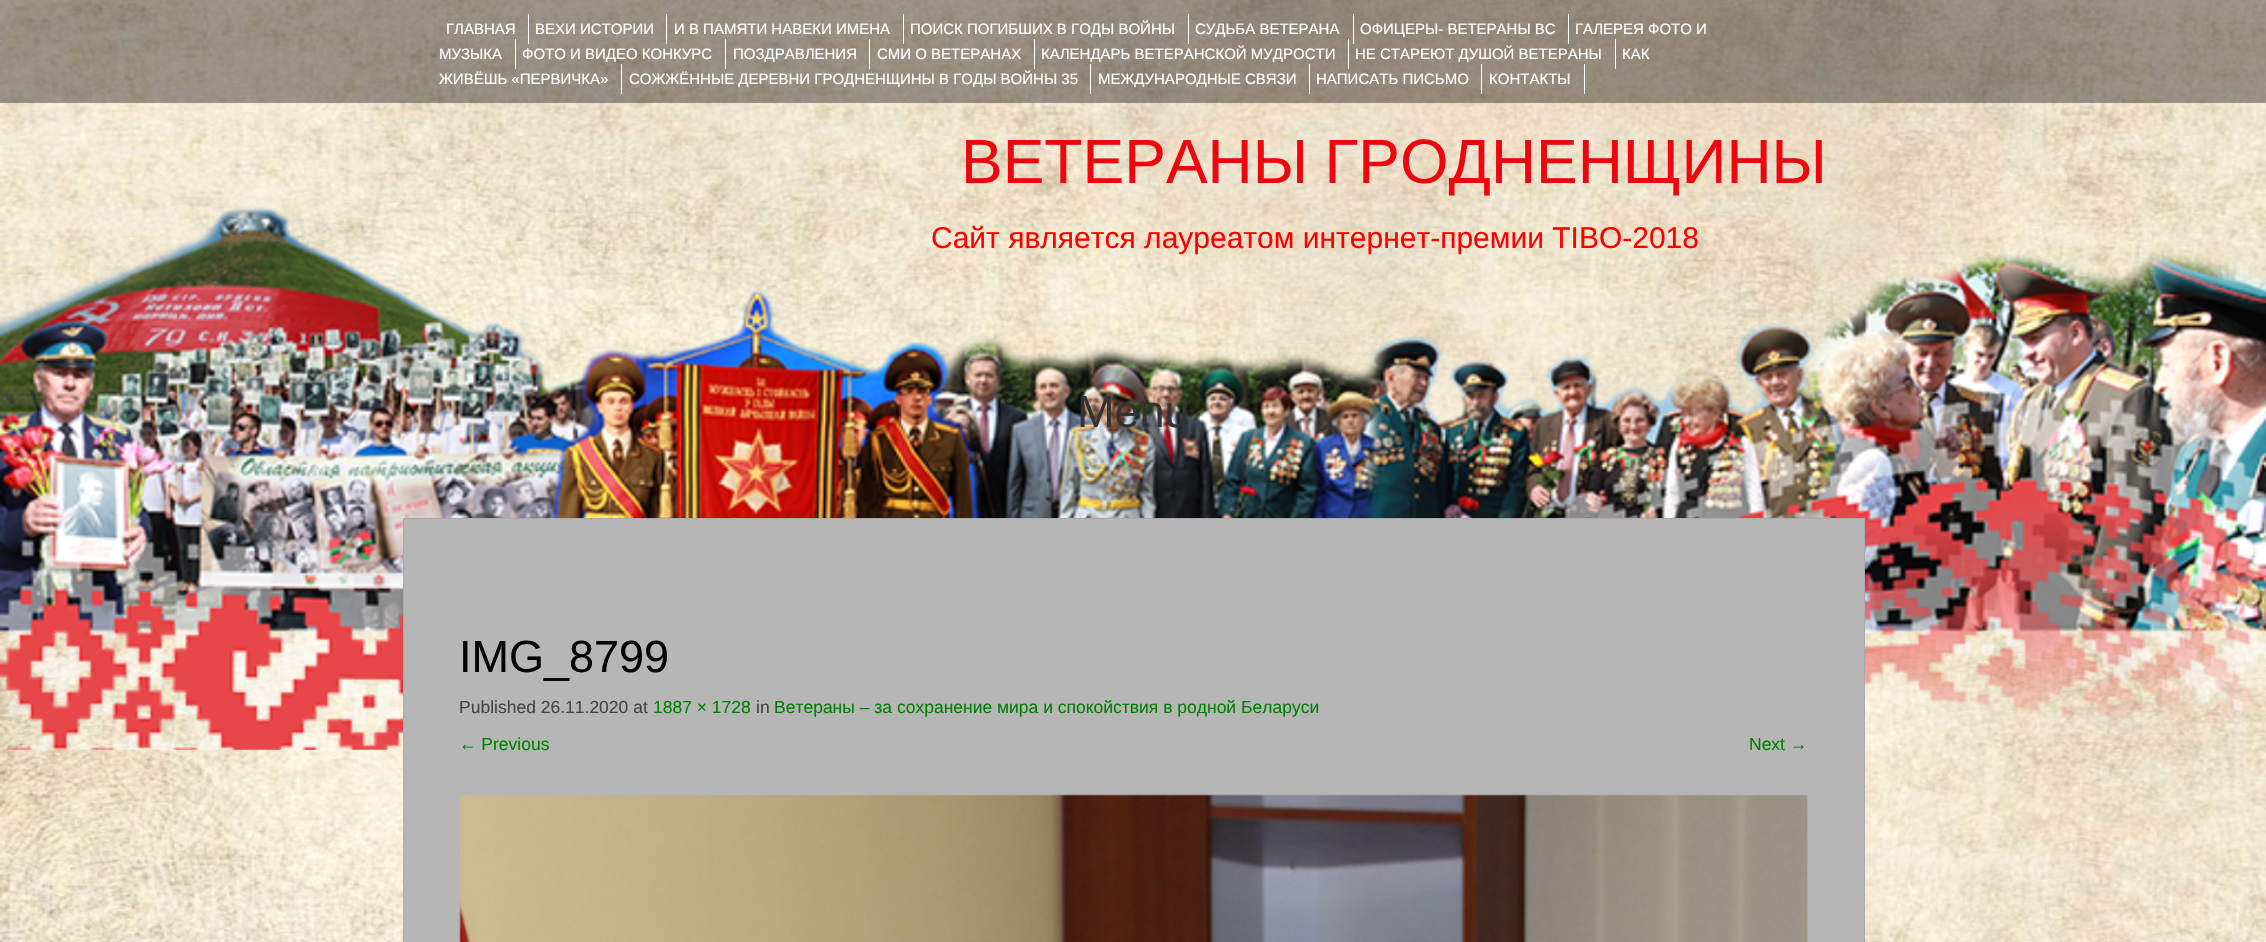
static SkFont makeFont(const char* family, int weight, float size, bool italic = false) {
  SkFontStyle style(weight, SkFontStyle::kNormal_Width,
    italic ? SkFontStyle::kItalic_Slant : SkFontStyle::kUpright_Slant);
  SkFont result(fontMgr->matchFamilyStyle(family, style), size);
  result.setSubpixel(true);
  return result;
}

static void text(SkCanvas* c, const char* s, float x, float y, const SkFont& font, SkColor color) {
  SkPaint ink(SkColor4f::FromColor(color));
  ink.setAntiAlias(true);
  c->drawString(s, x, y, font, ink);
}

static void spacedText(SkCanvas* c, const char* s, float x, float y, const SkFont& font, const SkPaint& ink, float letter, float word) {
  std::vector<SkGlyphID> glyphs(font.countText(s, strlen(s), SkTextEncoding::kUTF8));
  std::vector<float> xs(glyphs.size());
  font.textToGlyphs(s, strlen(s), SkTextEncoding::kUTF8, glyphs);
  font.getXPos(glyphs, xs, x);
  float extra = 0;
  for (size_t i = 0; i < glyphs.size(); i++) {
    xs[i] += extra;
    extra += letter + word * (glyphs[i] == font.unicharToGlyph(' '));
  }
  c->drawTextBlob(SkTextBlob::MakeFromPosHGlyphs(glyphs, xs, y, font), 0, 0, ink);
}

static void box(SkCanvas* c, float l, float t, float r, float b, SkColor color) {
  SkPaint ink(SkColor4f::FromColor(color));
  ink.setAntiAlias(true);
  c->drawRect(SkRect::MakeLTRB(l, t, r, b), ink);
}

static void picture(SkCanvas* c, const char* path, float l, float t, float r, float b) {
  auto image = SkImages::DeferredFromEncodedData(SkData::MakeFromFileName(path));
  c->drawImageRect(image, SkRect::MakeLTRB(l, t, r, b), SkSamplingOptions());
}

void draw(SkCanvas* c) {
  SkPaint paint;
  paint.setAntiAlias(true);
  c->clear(0xffffffff);
  picture(c, "img_01.png", 0, 0, 2266, 942);
  box(c, 0, 0, 2266, 103, 0x66120d0c);
  SkFont face1 = makeFont("Liberation Sans", 400, 15);
  text(c, "ГЛАВНАЯ", 446, 34, face1, 0xffffffff);
  box(c, 528, 14, 529, 44, 0xffffffff);
  text(c, "ВЕХИ ИСТОРИИ", 535, 34, face1, 0xffffffff);
  box(c, 666, 14, 667, 44, 0xffffffff);
  text(c, "И В ПАМЯТИ НАВЕКИ ИМЕНА", 674, 34, face1, 0xffffffff);
  box(c, 903, 14, 904, 44, 0xffffffff);
  text(c, "ПОИСК ПОГИБШИХ В ГОДЫ ВОЙНЫ", 910, 34, face1, 0xffffffff);
  box(c, 1188, 14, 1189, 44, 0xffffffff);
  text(c, "СУДЬБА ВЕТЕРАНА", 1195, 34, face1, 0xffffffff);
  box(c, 1353, 14, 1354, 44, 0xffffffff);
  text(c, "ОФИЦЕРЫ- ВЕТЕРАНЫ ВС", 1360, 34, face1, 0xffffffff);
  box(c, 1568, 14, 1569, 44, 0xffffffff);
  text(c, "ГАЛЕРЕЯ ФОТО И", 1575, 34, face1, 0xffffffff);
  text(c, "МУЗЫКА", 439, 59, face1, 0xffffffff);
  box(c, 515, 39, 516, 69, 0xffffffff);
  text(c, "ФОТО И ВИДЕО КОНКУРС", 522, 59, face1, 0xffffffff);
  box(c, 725, 39, 726, 69, 0xffffffff);
  text(c, "ПОЗДРАВЛЕНИЯ", 733, 59, face1, 0xffffffff);
  box(c, 869, 39, 870, 69, 0xffffffff);
  text(c, "СМИ О ВЕТЕРАНАХ", 877, 59, face1, 0xffffffff);
  box(c, 1034, 39, 1035, 69, 0xffffffff);
  text(c, "КАЛЕНДАРЬ ВЕТЕРАНСКОЙ МУДРОСТИ", 1041, 59, face1, 0xffffffff);
  box(c, 1348, 39, 1349, 69, 0xffffffff);
  text(c, "НЕ СТАРЕЮТ ДУШОЙ ВЕТЕРАНЫ", 1355, 59, face1, 0xffffffff);
  box(c, 1615, 39, 1616, 69, 0xffffffff);
  text(c, "КАК", 1622, 59, face1, 0xffffffff);
  text(c, "ЖИВЁШЬ «ПЕРВИЧКА»", 439, 84, face1, 0xffffffff);
  box(c, 621, 64, 622, 94, 0xffffffff);
  text(c, "СОЖЖЁННЫЕ ДЕРЕВНИ ГРОДНЕНЩИНЫ В ГОДЫ ВОЙНЫ 35", 629, 84, face1, 0xffffffff);
  box(c, 1090, 64, 1091, 94, 0xffffffff);
  text(c, "МЕЖДУНАРОДНЫЕ СВЯЗИ", 1098, 84, face1, 0xffffffff);
  box(c, 1309, 64, 1310, 94, 0xffffffff);
  text(c, "НАПИСАТЬ ПИСЬМО", 1316, 84, face1, 0xffffffff);
  box(c, 1481, 64, 1482, 94, 0xffffffff);
  text(c, "КОНТАКТЫ", 1489, 84, face1, 0xffffffff);
  box(c, 1584, 64, 1585, 94, 0xffffffff);
  SkFont face2 = makeFont("Liberation Sans", 400, 62.5f);
  paint.setColor(0xffec070e);
  spacedText(c, "ВЕТЕРАНЫ ГРОДНЕНЩИНЫ", 961, 183, face2, paint, 0, -1);
  picture(c, "img_03.png", 0, 207, 2266, 750);
  SkFont face3 = makeFont("Liberation Sans", 400, 30);
  text(c, "Сайт является лауреатом интернет-премии TIBO-2018", 931, 248, face3, 0xffff0000);
  SkFont face4 = makeFont("Liberation Sans", 400, 45);
  text(c, "Menu", 1077, 427, face4, 0xff333333);
  paint.setColor(0xffb6b6b6);
  c->drawRect(SkRect::MakeLTRB(403.5f, 518.5f, 1864.5f, 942.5f), paint);
  paint.setStyle(SkPaint::kStroke_Style);
  paint.setStrokeWidth(1);
  paint.setColor(0xffaaaaaa);
  c->drawRect(SkRect::MakeLTRB(403.5f, 518.5f, 1864.5f, 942.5f), paint);
  text(c, "IMG_8799", 459, 672, face4, 0xff040404);
  SkFont face5 = makeFont("Liberation Sans", 400, 17.5f);
  text(c, "Published 26.11.2020 at", 459, 713, face5, 0xff444444);
  text(c, "1887 × 1728", 653, 713, face5, 0xff008000);
  text(c, "in", 756, 713, face5, 0xff444444);
  text(c, "Ветераны – за сохранение мира и спокойствия в родной Беларуси", 774, 713, face5, 0xff008000);
  text(c, "← Previous", 459, 750, face5, 0xff008000);
  text(c, "Next →", 1749, 750, face5, 0xff008000);
  picture(c, "img_02.png", 459, 794, 1808, 942);
}
